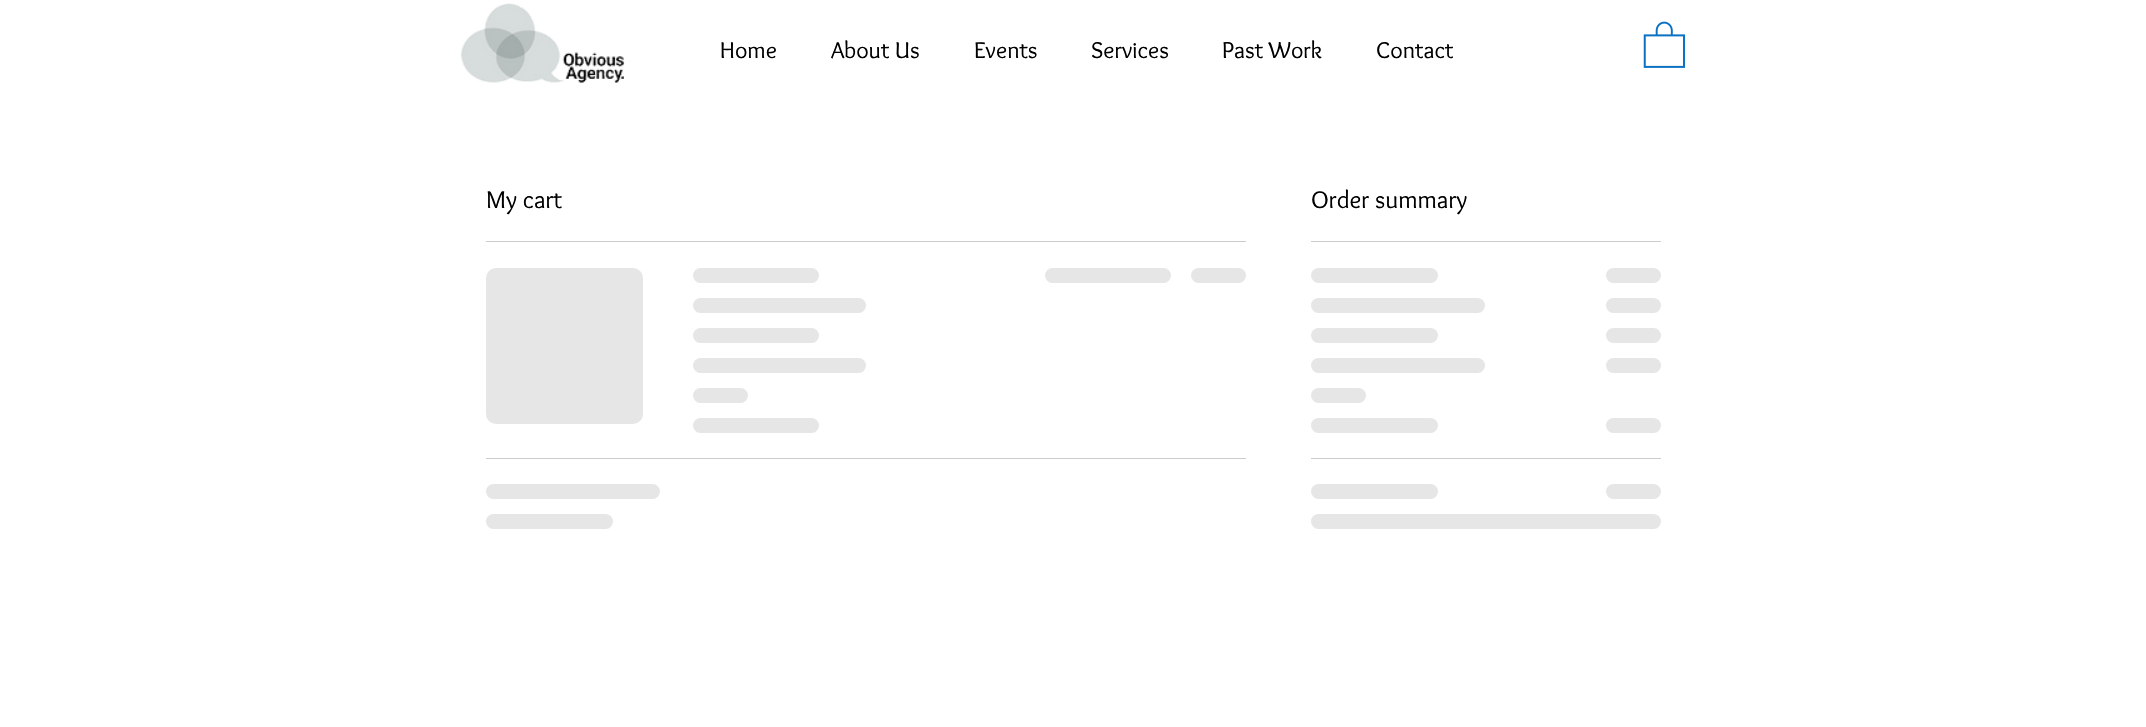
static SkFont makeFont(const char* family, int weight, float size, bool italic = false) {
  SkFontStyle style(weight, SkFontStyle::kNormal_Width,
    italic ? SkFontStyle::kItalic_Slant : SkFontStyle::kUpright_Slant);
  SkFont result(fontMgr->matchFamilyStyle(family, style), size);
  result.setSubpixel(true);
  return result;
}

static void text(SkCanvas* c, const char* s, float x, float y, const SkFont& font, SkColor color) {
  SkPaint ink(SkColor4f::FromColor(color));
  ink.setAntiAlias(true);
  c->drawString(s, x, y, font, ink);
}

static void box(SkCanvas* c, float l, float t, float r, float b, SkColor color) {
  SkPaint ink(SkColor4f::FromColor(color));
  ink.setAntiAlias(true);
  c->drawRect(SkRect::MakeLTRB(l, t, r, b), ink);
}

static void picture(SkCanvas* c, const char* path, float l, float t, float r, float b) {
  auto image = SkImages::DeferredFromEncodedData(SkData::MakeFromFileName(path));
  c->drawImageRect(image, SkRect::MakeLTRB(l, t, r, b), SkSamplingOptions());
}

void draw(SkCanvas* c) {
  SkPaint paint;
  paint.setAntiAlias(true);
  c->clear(0xffffffff);
  picture(c, "img_01.png", 461, 3, 625, 83);
  SkFont face1 = makeFont("Overlock", 400, 23.75f);
  text(c, "Home", 720, 58, face1, 0xff000000);
  text(c, "About Us", 831, 58, face1, 0xff000000);
  text(c, "Events", 974, 58, face1, 0xff000000);
  text(c, "Services", 1091, 58, face1, 0xff000000);
  text(c, "Past Work", 1222, 58, face1, 0xff000000);
  text(c, "Contact", 1376, 58, face1, 0xff000000);
  picture(c, "img_02.png", 1643, 21, 1685, 68);
  box(c, 486, 241, 1246, 242, 0xffcccccc);
  SkFont face2 = makeFont("Overlock", 400, 25);
  text(c, "My cart", 486, 208, face2, 0xff000000);
  {
    const SkColor colors[] = {0xffe6e6e6, 0xffcccccc, 0xffe6e6e6};
    const float stops[] = {0.25f, 0.37f, 0.63f};
    const SkPoint ends[] = {{486, 346}, {1111, 346}};
    paint.setShader(SkGradientShader::MakeLinear(ends, colors, stops, 3, SkTileMode::kClamp));
    paint.setAlpha(255);
  }
  c->drawRoundRect(SkRect::MakeLTRB(486, 268, 643, 424), 10, 10, paint);
  {
    const SkColor colors[] = {0xffe6e6e6, 0xffcccccc, 0xffe6e6e6};
    const float stops[] = {0.25f, 0.37f, 0.63f};
    const SkPoint ends[] = {{693, 275}, {1198, 275}};
    paint.setShader(SkGradientShader::MakeLinear(ends, colors, stops, 3, SkTileMode::kClamp));
    paint.setAlpha(255);
  }
  c->drawRoundRect(SkRect::MakeLTRB(693, 268, 819, 283), 7.5f, 7.5f, paint);
  {
    const SkColor colors[] = {0xffe6e6e6, 0xffcccccc, 0xffe6e6e6};
    const float stops[] = {0.25f, 0.37f, 0.63f};
    const SkPoint ends[] = {{693, 305}, {1388, 305}};
    paint.setShader(SkGradientShader::MakeLinear(ends, colors, stops, 3, SkTileMode::kClamp));
    paint.setAlpha(255);
  }
  c->drawRoundRect(SkRect::MakeLTRB(693, 298, 866, 313), 7.5f, 7.5f, paint);
  {
    const SkColor colors[] = {0xffe6e6e6, 0xffcccccc, 0xffe6e6e6};
    const float stops[] = {0.25f, 0.37f, 0.63f};
    const SkPoint ends[] = {{693, 335}, {1198, 335}};
    paint.setShader(SkGradientShader::MakeLinear(ends, colors, stops, 3, SkTileMode::kClamp));
    paint.setAlpha(255);
  }
  c->drawRoundRect(SkRect::MakeLTRB(693, 328, 819, 343), 7.5f, 7.5f, paint);
  {
    const SkColor colors[] = {0xffe6e6e6, 0xffcccccc, 0xffe6e6e6};
    const float stops[] = {0.25f, 0.37f, 0.63f};
    const SkPoint ends[] = {{693, 365}, {1388, 365}};
    paint.setShader(SkGradientShader::MakeLinear(ends, colors, stops, 3, SkTileMode::kClamp));
    paint.setAlpha(255);
  }
  c->drawRoundRect(SkRect::MakeLTRB(693, 358, 866, 373), 7.5f, 7.5f, paint);
  {
    const SkColor colors[] = {0xffe6e6e6, 0xffcccccc, 0xffe6e6e6};
    const float stops[] = {0.25f, 0.37f, 0.63f};
    const SkPoint ends[] = {{693, 395}, {913, 395}};
    paint.setShader(SkGradientShader::MakeLinear(ends, colors, stops, 3, SkTileMode::kClamp));
    paint.setAlpha(255);
  }
  c->drawRoundRect(SkRect::MakeLTRB(693, 388, 748, 403), 7.5f, 7.5f, paint);
  {
    const SkColor colors[] = {0xffe6e6e6, 0xffcccccc, 0xffe6e6e6};
    const float stops[] = {0.25f, 0.37f, 0.63f};
    const SkPoint ends[] = {{693, 425}, {1198, 425}};
    paint.setShader(SkGradientShader::MakeLinear(ends, colors, stops, 3, SkTileMode::kClamp));
    paint.setAlpha(255);
  }
  c->drawRoundRect(SkRect::MakeLTRB(693, 418, 819, 433), 7.5f, 7.5f, paint);
  {
    const SkColor colors[] = {0xffe6e6e6, 0xffcccccc, 0xffe6e6e6};
    const float stops[] = {0.25f, 0.37f, 0.63f};
    const SkPoint ends[] = {{1045, 275}, {1550, 275}};
    paint.setShader(SkGradientShader::MakeLinear(ends, colors, stops, 3, SkTileMode::kClamp));
    paint.setAlpha(255);
  }
  c->drawRoundRect(SkRect::MakeLTRB(1045, 268, 1171, 283), 7.5f, 7.5f, paint);
  {
    const SkColor colors[] = {0xffe6e6e6, 0xffcccccc, 0xffe6e6e6};
    const float stops[] = {0.25f, 0.37f, 0.63f};
    const SkPoint ends[] = {{1191, 275}, {1411, 275}};
    paint.setShader(SkGradientShader::MakeLinear(ends, colors, stops, 3, SkTileMode::kClamp));
    paint.setAlpha(255);
  }
  c->drawRoundRect(SkRect::MakeLTRB(1191, 268, 1246, 283), 7.5f, 7.5f, paint);
  box(c, 486, 458, 1246, 459, 0xffcccccc);
  {
    const SkColor colors[] = {0xffe6e6e6, 0xffcccccc, 0xffe6e6e6};
    const float stops[] = {0.25f, 0.37f, 0.63f};
    const SkPoint ends[] = {{486, 491}, {1181, 491}};
    paint.setShader(SkGradientShader::MakeLinear(ends, colors, stops, 3, SkTileMode::kClamp));
    paint.setAlpha(255);
  }
  c->drawRoundRect(SkRect::MakeLTRB(486, 484, 660, 499), 7.5f, 7.5f, paint);
  {
    const SkColor colors[] = {0xffe6e6e6, 0xffcccccc, 0xffe6e6e6};
    const float stops[] = {0.25f, 0.37f, 0.63f};
    const SkPoint ends[] = {{486, 521}, {991, 521}};
    paint.setShader(SkGradientShader::MakeLinear(ends, colors, stops, 3, SkTileMode::kClamp));
    paint.setAlpha(255);
  }
  c->drawRoundRect(SkRect::MakeLTRB(486, 514, 613, 529), 7.5f, 7.5f, paint);
  box(c, 1311, 241, 1661, 242, 0xffcccccc);
  text(c, "Order summary", 1311, 208, face2, 0xff000000);
  {
    const SkColor colors[] = {0xffe6e6e6, 0xffcccccc, 0xffe6e6e6};
    const float stops[] = {0.25f, 0.37f, 0.63f};
    const SkPoint ends[] = {{1311, 275}, {1816, 275}};
    paint.setShader(SkGradientShader::MakeLinear(ends, colors, stops, 3, SkTileMode::kClamp));
    paint.setAlpha(255);
  }
  c->drawRoundRect(SkRect::MakeLTRB(1311, 268, 1438, 283), 7.5f, 7.5f, paint);
  {
    const SkColor colors[] = {0xffe6e6e6, 0xffcccccc, 0xffe6e6e6};
    const float stops[] = {0.25f, 0.37f, 0.63f};
    const SkPoint ends[] = {{1606, 275}, {1826, 275}};
    paint.setShader(SkGradientShader::MakeLinear(ends, colors, stops, 3, SkTileMode::kClamp));
    paint.setAlpha(255);
  }
  c->drawRoundRect(SkRect::MakeLTRB(1606, 268, 1661, 283), 7.5f, 7.5f, paint);
  {
    const SkColor colors[] = {0xffe6e6e6, 0xffcccccc, 0xffe6e6e6};
    const float stops[] = {0.25f, 0.37f, 0.63f};
    const SkPoint ends[] = {{1311, 305}, {2006, 305}};
    paint.setShader(SkGradientShader::MakeLinear(ends, colors, stops, 3, SkTileMode::kClamp));
    paint.setAlpha(255);
  }
  c->drawRoundRect(SkRect::MakeLTRB(1311, 298, 1485, 313), 7.5f, 7.5f, paint);
  {
    const SkColor colors[] = {0xffe6e6e6, 0xffcccccc, 0xffe6e6e6};
    const float stops[] = {0.25f, 0.37f, 0.63f};
    const SkPoint ends[] = {{1606, 305}, {1826, 305}};
    paint.setShader(SkGradientShader::MakeLinear(ends, colors, stops, 3, SkTileMode::kClamp));
    paint.setAlpha(255);
  }
  c->drawRoundRect(SkRect::MakeLTRB(1606, 298, 1661, 313), 7.5f, 7.5f, paint);
  {
    const SkColor colors[] = {0xffe6e6e6, 0xffcccccc, 0xffe6e6e6};
    const float stops[] = {0.25f, 0.37f, 0.63f};
    const SkPoint ends[] = {{1311, 335}, {1816, 335}};
    paint.setShader(SkGradientShader::MakeLinear(ends, colors, stops, 3, SkTileMode::kClamp));
    paint.setAlpha(255);
  }
  c->drawRoundRect(SkRect::MakeLTRB(1311, 328, 1438, 343), 7.5f, 7.5f, paint);
  {
    const SkColor colors[] = {0xffe6e6e6, 0xffcccccc, 0xffe6e6e6};
    const float stops[] = {0.25f, 0.37f, 0.63f};
    const SkPoint ends[] = {{1606, 335}, {1826, 335}};
    paint.setShader(SkGradientShader::MakeLinear(ends, colors, stops, 3, SkTileMode::kClamp));
    paint.setAlpha(255);
  }
  c->drawRoundRect(SkRect::MakeLTRB(1606, 328, 1661, 343), 7.5f, 7.5f, paint);
  {
    const SkColor colors[] = {0xffe6e6e6, 0xffcccccc, 0xffe6e6e6};
    const float stops[] = {0.25f, 0.37f, 0.63f};
    const SkPoint ends[] = {{1311, 365}, {2006, 365}};
    paint.setShader(SkGradientShader::MakeLinear(ends, colors, stops, 3, SkTileMode::kClamp));
    paint.setAlpha(255);
  }
  c->drawRoundRect(SkRect::MakeLTRB(1311, 358, 1485, 373), 7.5f, 7.5f, paint);
  {
    const SkColor colors[] = {0xffe6e6e6, 0xffcccccc, 0xffe6e6e6};
    const float stops[] = {0.25f, 0.37f, 0.63f};
    const SkPoint ends[] = {{1606, 365}, {1826, 365}};
    paint.setShader(SkGradientShader::MakeLinear(ends, colors, stops, 3, SkTileMode::kClamp));
    paint.setAlpha(255);
  }
  c->drawRoundRect(SkRect::MakeLTRB(1606, 358, 1661, 373), 7.5f, 7.5f, paint);
  {
    const SkColor colors[] = {0xffe6e6e6, 0xffcccccc, 0xffe6e6e6};
    const float stops[] = {0.25f, 0.37f, 0.63f};
    const SkPoint ends[] = {{1311, 395}, {1531, 395}};
    paint.setShader(SkGradientShader::MakeLinear(ends, colors, stops, 3, SkTileMode::kClamp));
    paint.setAlpha(255);
  }
  c->drawRoundRect(SkRect::MakeLTRB(1311, 388, 1366, 403), 7.5f, 7.5f, paint);
  {
    const SkColor colors[] = {0xffe6e6e6, 0xffcccccc, 0xffe6e6e6};
    const float stops[] = {0.25f, 0.37f, 0.63f};
    const SkPoint ends[] = {{1311, 425}, {1816, 425}};
    paint.setShader(SkGradientShader::MakeLinear(ends, colors, stops, 3, SkTileMode::kClamp));
    paint.setAlpha(255);
  }
  c->drawRoundRect(SkRect::MakeLTRB(1311, 418, 1438, 433), 7.5f, 7.5f, paint);
  {
    const SkColor colors[] = {0xffe6e6e6, 0xffcccccc, 0xffe6e6e6};
    const float stops[] = {0.25f, 0.37f, 0.63f};
    const SkPoint ends[] = {{1606, 425}, {1826, 425}};
    paint.setShader(SkGradientShader::MakeLinear(ends, colors, stops, 3, SkTileMode::kClamp));
    paint.setAlpha(255);
  }
  c->drawRoundRect(SkRect::MakeLTRB(1606, 418, 1661, 433), 7.5f, 7.5f, paint);
  box(c, 1311, 458, 1661, 459, 0xffcccccc);
  {
    const SkColor colors[] = {0xffe6e6e6, 0xffcccccc, 0xffe6e6e6};
    const float stops[] = {0.25f, 0.37f, 0.63f};
    const SkPoint ends[] = {{1311, 491}, {1816, 491}};
    paint.setShader(SkGradientShader::MakeLinear(ends, colors, stops, 3, SkTileMode::kClamp));
    paint.setAlpha(255);
  }
  c->drawRoundRect(SkRect::MakeLTRB(1311, 484, 1438, 499), 7.5f, 7.5f, paint);
  {
    const SkColor colors[] = {0xffe6e6e6, 0xffcccccc, 0xffe6e6e6};
    const float stops[] = {0.25f, 0.37f, 0.63f};
    const SkPoint ends[] = {{1606, 491}, {1826, 491}};
    paint.setShader(SkGradientShader::MakeLinear(ends, colors, stops, 3, SkTileMode::kClamp));
    paint.setAlpha(255);
  }
  c->drawRoundRect(SkRect::MakeLTRB(1606, 484, 1661, 499), 7.5f, 7.5f, paint);
  {
    const SkColor colors[] = {0xffe6e6e6, 0xffcccccc, 0xffe6e6e6};
    const float stops[] = {0.25f, 0.37f, 0.63f};
    const SkPoint ends[] = {{1311, 521}, {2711, 521}};
    paint.setShader(SkGradientShader::MakeLinear(ends, colors, stops, 3, SkTileMode::kClamp));
    paint.setAlpha(255);
  }
  c->drawRoundRect(SkRect::MakeLTRB(1311, 514, 1661, 529), 7.5f, 7.5f, paint);
}
